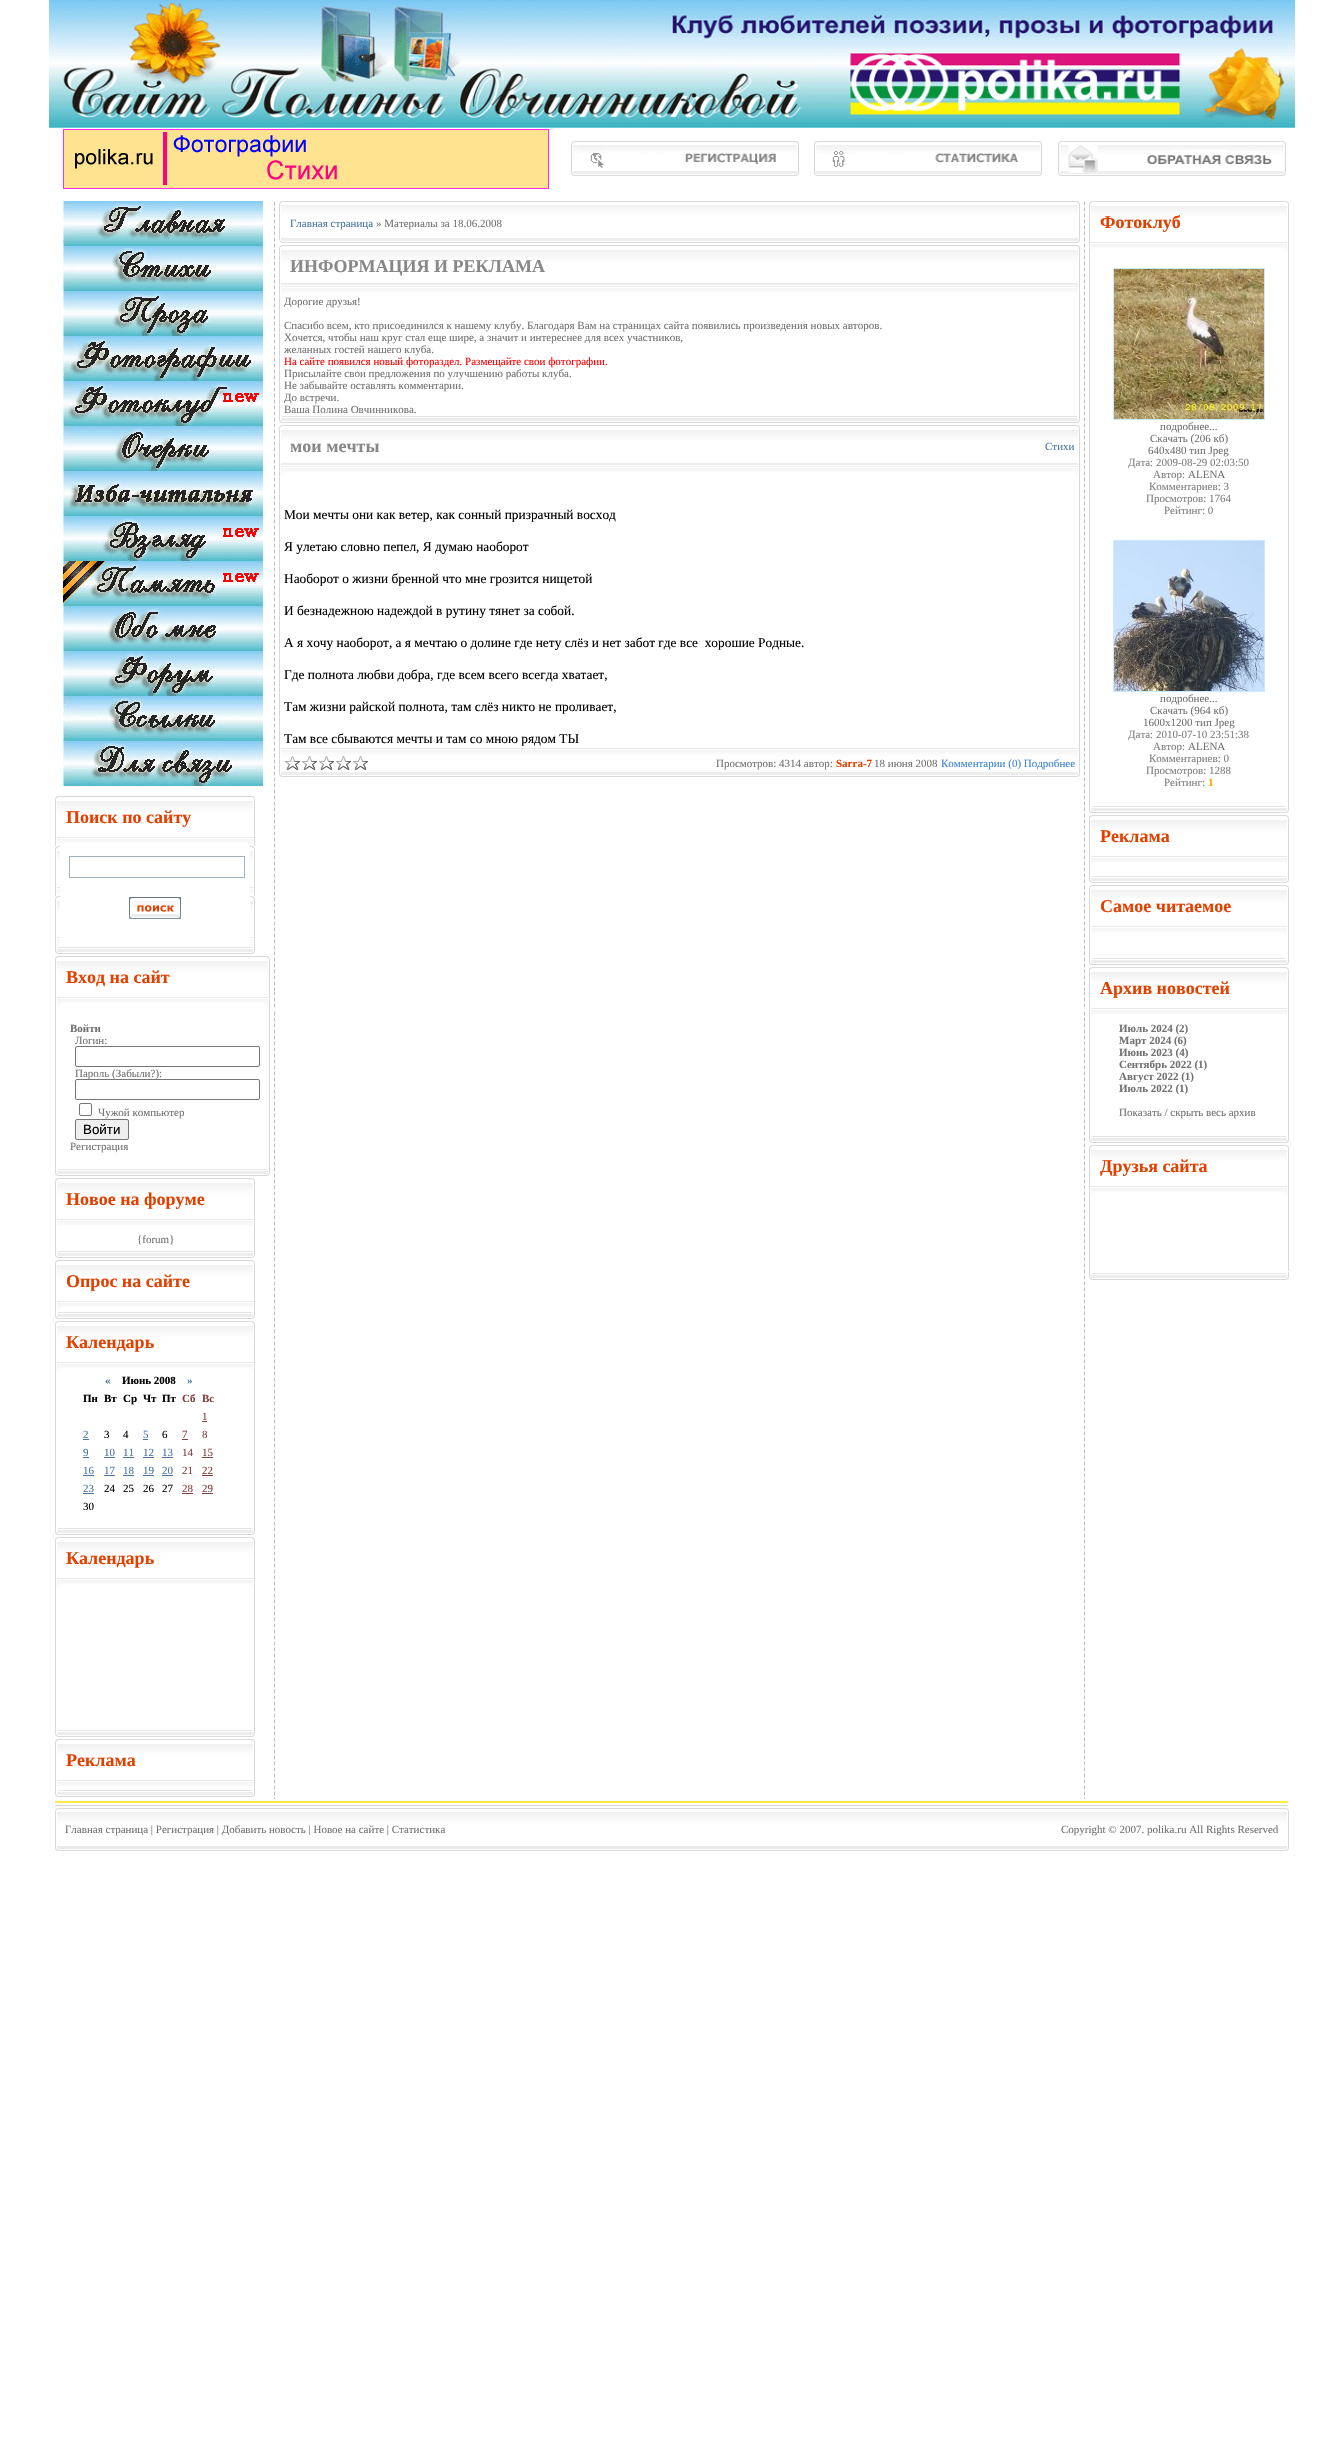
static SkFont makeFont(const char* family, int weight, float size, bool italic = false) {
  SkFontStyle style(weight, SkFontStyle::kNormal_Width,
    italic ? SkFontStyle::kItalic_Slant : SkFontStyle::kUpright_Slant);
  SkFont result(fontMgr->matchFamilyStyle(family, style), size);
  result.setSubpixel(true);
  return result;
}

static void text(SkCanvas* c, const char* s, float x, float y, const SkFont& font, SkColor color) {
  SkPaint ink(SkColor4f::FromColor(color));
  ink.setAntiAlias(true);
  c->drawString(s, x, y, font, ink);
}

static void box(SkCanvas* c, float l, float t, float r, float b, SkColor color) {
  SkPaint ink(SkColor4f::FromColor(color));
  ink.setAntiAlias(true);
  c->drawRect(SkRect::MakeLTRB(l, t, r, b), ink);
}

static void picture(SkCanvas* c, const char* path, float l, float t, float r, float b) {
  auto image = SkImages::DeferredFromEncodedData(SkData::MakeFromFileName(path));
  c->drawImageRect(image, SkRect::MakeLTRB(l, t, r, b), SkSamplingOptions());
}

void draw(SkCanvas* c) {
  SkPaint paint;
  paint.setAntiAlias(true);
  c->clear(0xffffffff);
  picture(c, "img_01.png", 49, 0, 1295, 128);
  picture(c, "img_02.png", 63, 129, 549, 189);
  picture(c, "img_03.png", 571, 141, 799, 176);
  picture(c, "img_04.png", 814, 141, 1042, 176);
  picture(c, "img_05.png", 1058, 141, 1286, 176);
  picture(c, "img_06.png", 274, 201, 275, 1799);
  picture(c, "img_07.png", 274, 991, 275, 1009);
  picture(c, "img_08.png", 279, 201, 284, 243);
  picture(c, "img_09.png", 284, 201, 1075, 243);
  SkFont face1 = makeFont("Liberation Serif", 400, 11);
  text(c, "Главная страница", 290, 227, face1, 0xff4974a3);
  text(c, "» Материалы за 18.06.2008", 376, 227, face1, 0xff727272);
  picture(c, "img_10.png", 1075, 201, 1080, 243);
  picture(c, "img_11.png", 279, 245, 284, 295);
  picture(c, "img_12.png", 284, 245, 1075, 292);
  SkFont face2 = makeFont("Liberation Serif", 700, 18);
  text(c, "ИНФОРМАЦИЯ И РЕКЛАМА", 290, 272, face2, 0xff888888);
  picture(c, "img_13.png", 1075, 245, 1080, 295);
  box(c, 279, 295, 280, 415, 0xffd9d9d9);
  text(c, "Дорогие друзья!", 284, 305, face1, 0xff727272);
  text(c, "Спасибо всем, кто присоединился к нашему клубу. Благодаря Вам на страницах сайта появились произведения новых авторов.", 284, 329, face1, 0xff727272);
  text(c, "Хочется, чтобы наш круг стал еще шире, а значит и интереснее для всех участников,", 284, 341, face1, 0xff727272);
  text(c, "желанных гостей нашего клуба.", 284, 353, face1, 0xff727272);
  text(c, "На сайте появился новый фотораздел. Размещайте свои фотографии.", 284, 365, face1, 0xffff0000);
  text(c, "Присылайте свои предложения по улучшению работы клуба.", 284, 377, face1, 0xff727272);
  text(c, "Не забывайте оставлять комментарии.", 284, 389, face1, 0xff727272);
  text(c, "До встречи.", 284, 401, face1, 0xff727272);
  text(c, "Ваша Полина Овчинникова.", 284, 413, face1, 0xff727272);
  box(c, 1079, 295, 1080, 415, 0xffd9d9d9);
  picture(c, "img_14.png", 279, 415, 284, 423);
  picture(c, "img_15.png", 284, 416, 1075, 423);
  picture(c, "img_16.png", 1075, 415, 1080, 423);
  picture(c, "img_11.png", 279, 425, 284, 475);
  picture(c, "img_17.png", 284, 425, 888, 472);
  text(c, "мои мечты", 290, 452, face2, 0xff888888);
  picture(c, "img_18.png", 888, 425, 1075, 472);
  text(c, "Стихи", 1045, 450, face1, 0xff4974a3);
  picture(c, "img_13.png", 1075, 425, 1080, 475);
  box(c, 279, 475, 280, 747, 0xffd9d9d9);
  box(c, 1079, 475, 1080, 747, 0xffd9d9d9);
  SkFont face3 = makeFont("Liberation Serif", 400, 13.35f);
  text(c, "Мои мечты они как ветер, как сонный призрачный восход", 284, 519, face3, 0xff000000);
  text(c, "Я улетаю словно пепел, Я думаю наоборот", 284, 551, face3, 0xff000000);
  text(c, "Наоборот о жизни бренной что мне грозится нищетой", 284, 583, face3, 0xff000000);
  text(c, "И безнадежною надеждой в рутину тянет за собой.", 284, 615, face3, 0xff000000);
  text(c, "А я хочу наоборот, а я мечтаю о долине где нету слёз и нет забот где все  хорошие Родные.", 284, 647, face3, 0xff000000);
  text(c, "Где полнота любви добра, где всем всего всегда хватает,", 284, 679, face3, 0xff000000);
  text(c, "Там жизни райской полнота, там слёз никто не проливает,", 284, 711, face3, 0xff000000);
  text(c, "Там все сбываются мечты и там со мною рядом ТЫ", 284, 743, face3, 0xff000000);
  picture(c, "img_19.png", 279, 747, 284, 777);
  picture(c, "img_20.png", 284, 748, 436, 777);
  picture(c, "img_21.png", 285, 756, 368, 770);
  picture(c, "img_22.png", 436, 748, 1075, 777);
  text(c, "Просмотров: 4314 автор:", 716, 767, face1, 0xff727272);
  SkFont face4 = makeFont("Liberation Serif", 700, 11);
  text(c, "Sarra-7", 836, 767, face4, 0xffe34000);
  text(c, "18 июня 2008", 874, 767, face1, 0xff727272);
  text(c, "Комментарии (0) Подробнее", 941, 767, face1, 0xff3b84d0);
  picture(c, "img_23.png", 1075, 747, 1080, 777);
  picture(c, "img_06.png", 1084, 201, 1085, 1799);
  picture(c, "img_07.png", 1084, 991, 1085, 1009);
  picture(c, "img_24.png", 1089, 201, 1094, 251);
  picture(c, "img_25.png", 1094, 201, 1284, 248);
  text(c, "Фотоклуб", 1100, 228, face2, 0xffe34000);
  picture(c, "img_26.png", 1284, 201, 1289, 251);
  box(c, 1089, 251, 1090, 805, 0xffd9d9d9);
  paint.setStyle(SkPaint::kStroke_Style);
  paint.setStrokeWidth(1);
  paint.setColor(0xffcaeaff);
  c->drawRect(SkRect::MakeLTRB(1113.5f, 268.5f, 1264.5f, 419.5f), paint);
  picture(c, "img_27.png", 1114, 269, 1264, 419);
  text(c, "подробнее...", 1160, 430, face1, 0xff727272);
  text(c, "Скачать (206 кб)", 1150, 442, face1, 0xff727272);
  text(c, "640x480 тип Jpeg", 1148, 454, face1, 0xff727272);
  text(c, "Дата: 2009-08-29 02:03:50", 1128, 466, face1, 0xff808080);
  text(c, "Автор:", 1153, 478, face1, 0xff808080);
  text(c, "ALENA", 1188, 478, face1, 0xff727272);
  text(c, "Комментариев: 3", 1149, 490, face1, 0xff808080);
  text(c, "Просмотров: 1764", 1146, 502, face1, 0xff808080);
  text(c, "Рейтинг: 0", 1164, 514, face1, 0xff808080);
  c->drawRect(SkRect::MakeLTRB(1113.5f, 540.5f, 1264.5f, 691.5f), paint);
  picture(c, "img_28.png", 1114, 541, 1264, 691);
  text(c, "подробнее...", 1160, 702, face1, 0xff727272);
  text(c, "Скачать (964 кб)", 1150, 714, face1, 0xff727272);
  text(c, "1600x1200 тип Jpeg", 1143, 726, face1, 0xff727272);
  text(c, "Дата: 2010-07-10 23:51:38", 1128, 738, face1, 0xff808080);
  text(c, "Автор:", 1153, 750, face1, 0xff808080);
  text(c, "ALENA", 1188, 750, face1, 0xff727272);
  text(c, "Комментариев: 0", 1149, 762, face1, 0xff808080);
  text(c, "Просмотров: 1288", 1146, 774, face1, 0xff808080);
  text(c, "Рейтинг:", 1164, 786, face1, 0xff808080);
  text(c, "1", 1208, 786, face4, 0xffffa500);
  box(c, 1288, 251, 1289, 805, 0xffd9d9d9);
  picture(c, "img_14.png", 1089, 805, 1094, 813);
  picture(c, "img_29.png", 1094, 806, 1284, 813);
  picture(c, "img_16.png", 1284, 805, 1289, 813);
  picture(c, "img_24.png", 1089, 815, 1094, 865);
  picture(c, "img_25.png", 1094, 815, 1284, 862);
  text(c, "Реклама", 1100, 842, face2, 0xffe34000);
  picture(c, "img_26.png", 1284, 815, 1289, 865);
  box(c, 1089, 865, 1090, 875, 0xffd9d9d9);
  box(c, 1288, 865, 1289, 875, 0xffd9d9d9);
  picture(c, "img_14.png", 1089, 875, 1094, 883);
  picture(c, "img_29.png", 1094, 876, 1284, 883);
  picture(c, "img_16.png", 1284, 875, 1289, 883);
  picture(c, "img_24.png", 1089, 885, 1094, 935);
  picture(c, "img_25.png", 1094, 885, 1284, 932);
  text(c, "Самое читаемое", 1100, 912, face2, 0xffe34000);
  picture(c, "img_26.png", 1284, 885, 1289, 935);
  box(c, 1089, 935, 1090, 957, 0xffd9d9d9);
  box(c, 1288, 935, 1289, 957, 0xffd9d9d9);
  picture(c, "img_14.png", 1089, 957, 1094, 965);
  picture(c, "img_29.png", 1094, 958, 1284, 965);
  picture(c, "img_16.png", 1284, 957, 1289, 965);
  picture(c, "img_24.png", 1089, 967, 1094, 1017);
  picture(c, "img_25.png", 1094, 967, 1284, 1014);
  text(c, "Архив новостей", 1100, 994, face2, 0xffe34000);
  picture(c, "img_26.png", 1284, 967, 1289, 1017);
  box(c, 1089, 1017, 1090, 1135, 0xffd9d9d9);
  text(c, "Июль 2024 (2)", 1119, 1032, face4, 0xff727272);
  text(c, "Март 2024 (6)", 1119, 1044, face4, 0xff727272);
  text(c, "Июнь 2023 (4)", 1119, 1056, face4, 0xff727272);
  text(c, "Сентябрь 2022 (1)", 1119, 1068, face4, 0xff727272);
  text(c, "Август 2022 (1)", 1119, 1080, face4, 0xff727272);
  text(c, "Июль 2022 (1)", 1119, 1092, face4, 0xff727272);
  text(c, "Показать / скрыть весь архив", 1119, 1116, face1, 0xff727272);
  box(c, 1288, 1017, 1289, 1135, 0xffd9d9d9);
  picture(c, "img_14.png", 1089, 1135, 1094, 1143);
  picture(c, "img_29.png", 1094, 1136, 1284, 1143);
  picture(c, "img_16.png", 1284, 1135, 1289, 1143);
  picture(c, "img_24.png", 1089, 1145, 1094, 1195);
  picture(c, "img_25.png", 1094, 1145, 1284, 1192);
  text(c, "Друзья сайта", 1100, 1172, face2, 0xffe34000);
  picture(c, "img_26.png", 1284, 1145, 1289, 1195);
  box(c, 1089, 1195, 1090, 1272, 0xffd9d9d9);
  box(c, 1288, 1195, 1289, 1271, 0xffd9d9d9);
  picture(c, "img_14.png", 1089, 1272, 1094, 1280);
  picture(c, "img_29.png", 1094, 1273, 1284, 1280);
  picture(c, "img_16.png", 1284, 1272, 1289, 1280);
  picture(c, "img_30.png", 63, 201, 263, 246);
  picture(c, "img_31.png", 63, 246, 263, 291);
  picture(c, "img_32.png", 63, 291, 263, 336);
  picture(c, "img_33.png", 63, 336, 263, 381);
  picture(c, "img_34.png", 63, 381, 263, 426);
  picture(c, "img_35.png", 63, 426, 263, 471);
  picture(c, "img_36.png", 63, 471, 263, 516);
  picture(c, "img_37.png", 63, 516, 263, 561);
  picture(c, "img_38.png", 63, 561, 263, 606);
  picture(c, "img_39.png", 63, 606, 263, 651);
  picture(c, "img_40.png", 63, 651, 263, 696);
  picture(c, "img_41.png", 63, 696, 263, 741);
  picture(c, "img_42.png", 63, 741, 263, 786);
  picture(c, "img_24.png", 55, 796, 60, 846);
  picture(c, "img_25.png", 60, 796, 250, 843);
  text(c, "Поиск по сайту", 66, 823, face2, 0xffe34000);
  picture(c, "img_26.png", 250, 796, 255, 846);
  picture(c, "img_24.png", 55, 846, 60, 896);
  paint.setColor(0xffa1b1be);
  c->drawRect(SkRect::MakeLTRB(69.5f, 856.5f, 244.5f, 877.5f), paint);
  picture(c, "img_26.png", 250, 846, 255, 896);
  picture(c, "img_24.png", 55, 896, 60, 946);
  picture(c, "img_43.png", 129, 897, 181, 919);
  picture(c, "img_26.png", 250, 896, 255, 946);
  picture(c, "img_14.png", 55, 946, 60, 954);
  picture(c, "img_29.png", 60, 947, 250, 954);
  picture(c, "img_16.png", 250, 946, 255, 954);
  picture(c, "img_24.png", 55, 956, 60, 1006);
  picture(c, "img_44.png", 60, 956, 265, 1003);
  text(c, "Вход на сайт", 66, 983, face2, 0xffe34000);
  picture(c, "img_26.png", 265, 956, 270, 1006);
  box(c, 55, 1006, 56, 1168, 0xffd9d9d9);
  text(c, "Войти", 70, 1032, face4, 0xff727272);
  text(c, "Логин:", 75, 1044, face1, 0xff727272);
  paint.setColor(0xff767676);
  c->drawRoundRect(SkRect::MakeLTRB(75.5f, 1046.5f, 259.5f, 1066.5f), 1.5f, 1.5f, paint);
  text(c, "Пароль (Забыли?):", 75, 1077, face1, 0xff727272);
  paint.setStyle(SkPaint::kFill_Style);
  paint.setColor(0xffffffff);
  c->drawRoundRect(SkRect::MakeLTRB(75.5f, 1079.5f, 259.5f, 1099.5f), 1.5f, 1.5f, paint);
  paint.setStyle(SkPaint::kStroke_Style);
  paint.setColor(0xff767676);
  c->drawRoundRect(SkRect::MakeLTRB(75.5f, 1079.5f, 259.5f, 1099.5f), 1.5f, 1.5f, paint);
  c->drawRoundRect(SkRect::MakeLTRB(79.5f, 1103.5f, 91.5f, 1115.5f), 1.5f, 1.5f, paint);
  text(c, "Чужой компьютер", 98, 1116, face1, 0xff727272);
  paint.setStyle(SkPaint::kFill_Style);
  paint.setColor(0xffefefef);
  c->drawRoundRect(SkRect::MakeLTRB(75.5f, 1119.5f, 128.5f, 1139.5f), 1.5f, 1.5f, paint);
  paint.setStyle(SkPaint::kStroke_Style);
  paint.setColor(0xff767676);
  c->drawRoundRect(SkRect::MakeLTRB(75.5f, 1119.5f, 128.5f, 1139.5f), 1.5f, 1.5f, paint);
  SkFont face5 = makeFont("Liberation Sans", 400, 13.35f);
  text(c, "Войти", 83, 1134, face5, 0xff000000);
  text(c, "Регистрация", 70, 1150, face1, 0xff727272);
  box(c, 269, 1006, 270, 1168, 0xffd9d9d9);
  picture(c, "img_14.png", 55, 1168, 60, 1176);
  picture(c, "img_45.png", 60, 1169, 265, 1176);
  picture(c, "img_16.png", 265, 1168, 270, 1176);
  picture(c, "img_24.png", 55, 1178, 60, 1228);
  picture(c, "img_25.png", 60, 1178, 250, 1225);
  text(c, "Новое на форуме", 66, 1205, face2, 0xffe34000);
  picture(c, "img_26.png", 250, 1178, 255, 1228);
  box(c, 55, 1228, 56, 1250, 0xffd9d9d9);
  text(c, "{forum}", 137, 1243, face1, 0xff727272);
  box(c, 254, 1228, 255, 1250, 0xffd9d9d9);
  picture(c, "img_14.png", 55, 1250, 60, 1258);
  picture(c, "img_29.png", 60, 1251, 250, 1258);
  picture(c, "img_16.png", 250, 1250, 255, 1258);
  picture(c, "img_24.png", 55, 1260, 60, 1310);
  picture(c, "img_25.png", 60, 1260, 250, 1307);
  text(c, "Опрос на сайте", 66, 1287, face2, 0xffe34000);
  picture(c, "img_26.png", 250, 1260, 255, 1310);
  box(c, 55, 1310, 56, 1311, 0xffd9d9d9);
  box(c, 254, 1310, 255, 1311, 0xffd9d9d9);
  picture(c, "img_14.png", 55, 1311, 60, 1319);
  picture(c, "img_29.png", 60, 1312, 250, 1319);
  picture(c, "img_16.png", 250, 1311, 255, 1319);
  picture(c, "img_24.png", 55, 1321, 60, 1371);
  picture(c, "img_25.png", 60, 1321, 250, 1368);
  text(c, "Календарь", 66, 1348, face2, 0xffe34000);
  picture(c, "img_26.png", 250, 1321, 255, 1371);
  box(c, 55, 1371, 56, 1527, 0xffd9d9d9);
  text(c, "«", 105, 1384, face4, 0xff4974a3);
  text(c, "Июнь 2008", 122, 1384, face4, 0xff000000);
  text(c, "»", 187, 1384, face4, 0xff4974a3);
  text(c, "Пн", 83, 1402, face4, 0xff000000);
  text(c, "Вт", 104, 1402, face4, 0xff000000);
  text(c, "Ср", 123, 1402, face4, 0xff000000);
  text(c, "Чт", 143, 1402, face4, 0xff000000);
  text(c, "Пт", 162, 1402, face4, 0xff000000);
  text(c, "Сб", 182, 1402, face4, 0xff804040);
  text(c, "Вс", 202, 1402, face4, 0xff804040);
  text(c, "1", 202, 1420, face1, 0xff804040);
  box(c, 202, 1421, 207, 1422, 0xff804040);
  text(c, "2", 83, 1438, face1, 0xff4974a3);
  box(c, 83, 1439, 89, 1440, 0xff4974a3);
  text(c, "3", 104, 1438, face1, 0xff000000);
  text(c, "4", 123, 1438, face1, 0xff000000);
  text(c, "5", 143, 1438, face1, 0xff4974a3);
  box(c, 143, 1439, 148, 1440, 0xff4974a3);
  text(c, "6", 162, 1438, face1, 0xff000000);
  text(c, "7", 182, 1438, face1, 0xff804040);
  box(c, 182, 1439, 188, 1440, 0xff804040);
  text(c, "8", 202, 1438, face1, 0xff804040);
  text(c, "9", 83, 1456, face1, 0xff4974a3);
  box(c, 83, 1457, 89, 1458, 0xff4974a3);
  text(c, "10", 104, 1456, face1, 0xff4974a3);
  box(c, 104, 1457, 115, 1458, 0xff4974a3);
  text(c, "11", 123, 1456, face1, 0xff4974a3);
  box(c, 123, 1457, 134, 1458, 0xff4974a3);
  text(c, "12", 143, 1456, face1, 0xff4974a3);
  box(c, 143, 1457, 154, 1458, 0xff4974a3);
  text(c, "13", 162, 1456, face1, 0xff4974a3);
  box(c, 162, 1457, 173, 1458, 0xff4974a3);
  text(c, "14", 182, 1456, face1, 0xff804040);
  text(c, "15", 202, 1456, face1, 0xff804040);
  box(c, 202, 1457, 213, 1458, 0xff804040);
  text(c, "16", 83, 1474, face1, 0xff4974a3);
  box(c, 83, 1475, 94, 1476, 0xff4974a3);
  text(c, "17", 104, 1474, face1, 0xff4974a3);
  box(c, 104, 1475, 115, 1476, 0xff4974a3);
  text(c, "18", 123, 1474, face1, 0xff4974a3);
  box(c, 123, 1475, 134, 1476, 0xff4974a3);
  text(c, "19", 143, 1474, face1, 0xff4974a3);
  box(c, 143, 1475, 154, 1476, 0xff4974a3);
  text(c, "20", 162, 1474, face1, 0xff4974a3);
  box(c, 162, 1475, 173, 1476, 0xff4974a3);
  text(c, "21", 182, 1474, face1, 0xff804040);
  text(c, "22", 202, 1474, face1, 0xff804040);
  box(c, 202, 1475, 213, 1476, 0xff804040);
  text(c, "23", 83, 1492, face1, 0xff4974a3);
  box(c, 83, 1493, 94, 1494, 0xff4974a3);
  text(c, "24", 104, 1492, face1, 0xff000000);
  text(c, "25", 123, 1492, face1, 0xff000000);
  text(c, "26", 143, 1492, face1, 0xff000000);
  text(c, "27", 162, 1492, face1, 0xff000000);
  text(c, "28", 182, 1492, face1, 0xff804040);
  box(c, 182, 1493, 193, 1494, 0xff804040);
  text(c, "29", 202, 1492, face1, 0xff804040);
  box(c, 202, 1493, 213, 1494, 0xff804040);
  text(c, "30", 83, 1510, face1, 0xff000000);
  box(c, 254, 1371, 255, 1527, 0xffd9d9d9);
  picture(c, "img_14.png", 55, 1527, 60, 1535);
  picture(c, "img_29.png", 60, 1528, 250, 1535);
  picture(c, "img_16.png", 250, 1527, 255, 1535);
  picture(c, "img_24.png", 55, 1537, 60, 1587);
  picture(c, "img_25.png", 60, 1537, 250, 1584);
  text(c, "Календарь", 66, 1564, face2, 0xffe34000);
  picture(c, "img_26.png", 250, 1537, 255, 1587);
  box(c, 55, 1587, 56, 1729, 0xffd9d9d9);
  box(c, 254, 1587, 255, 1729, 0xffd9d9d9);
  picture(c, "img_14.png", 55, 1729, 60, 1737);
  picture(c, "img_29.png", 60, 1730, 250, 1737);
  picture(c, "img_16.png", 250, 1729, 255, 1737);
  picture(c, "img_24.png", 55, 1739, 60, 1789);
  picture(c, "img_25.png", 60, 1739, 250, 1786);
  text(c, "Реклама", 66, 1766, face2, 0xffe34000);
  picture(c, "img_26.png", 250, 1739, 255, 1789);
  picture(c, "img_14.png", 55, 1789, 60, 1797);
  picture(c, "img_29.png", 60, 1790, 250, 1797);
  picture(c, "img_16.png", 250, 1789, 255, 1797);
  picture(c, "img_46.png", 55, 1801, 60, 1851);
  picture(c, "img_47.png", 60, 1801, 517, 1851);
  text(c, "Главная страница | Регистрация | Добавить новость | Новое на сайте | Статистика", 65, 1833, face1, 0xff727272);
  picture(c, "img_48.png", 517, 1801, 617, 1851);
  picture(c, "img_48.png", 617, 1801, 717, 1851);
  picture(c, "img_48.png", 717, 1801, 817, 1851);
  picture(c, "img_48.png", 817, 1801, 917, 1851);
  picture(c, "img_48.png", 917, 1801, 1017, 1851);
  picture(c, "img_49.png", 1017, 1801, 1284, 1851);
  text(c, "Copyright © 2007. polika.ru All Rights Reserved", 1061, 1833, face1, 0xff727272);
  picture(c, "img_50.png", 1284, 1801, 1289, 1851);
}
